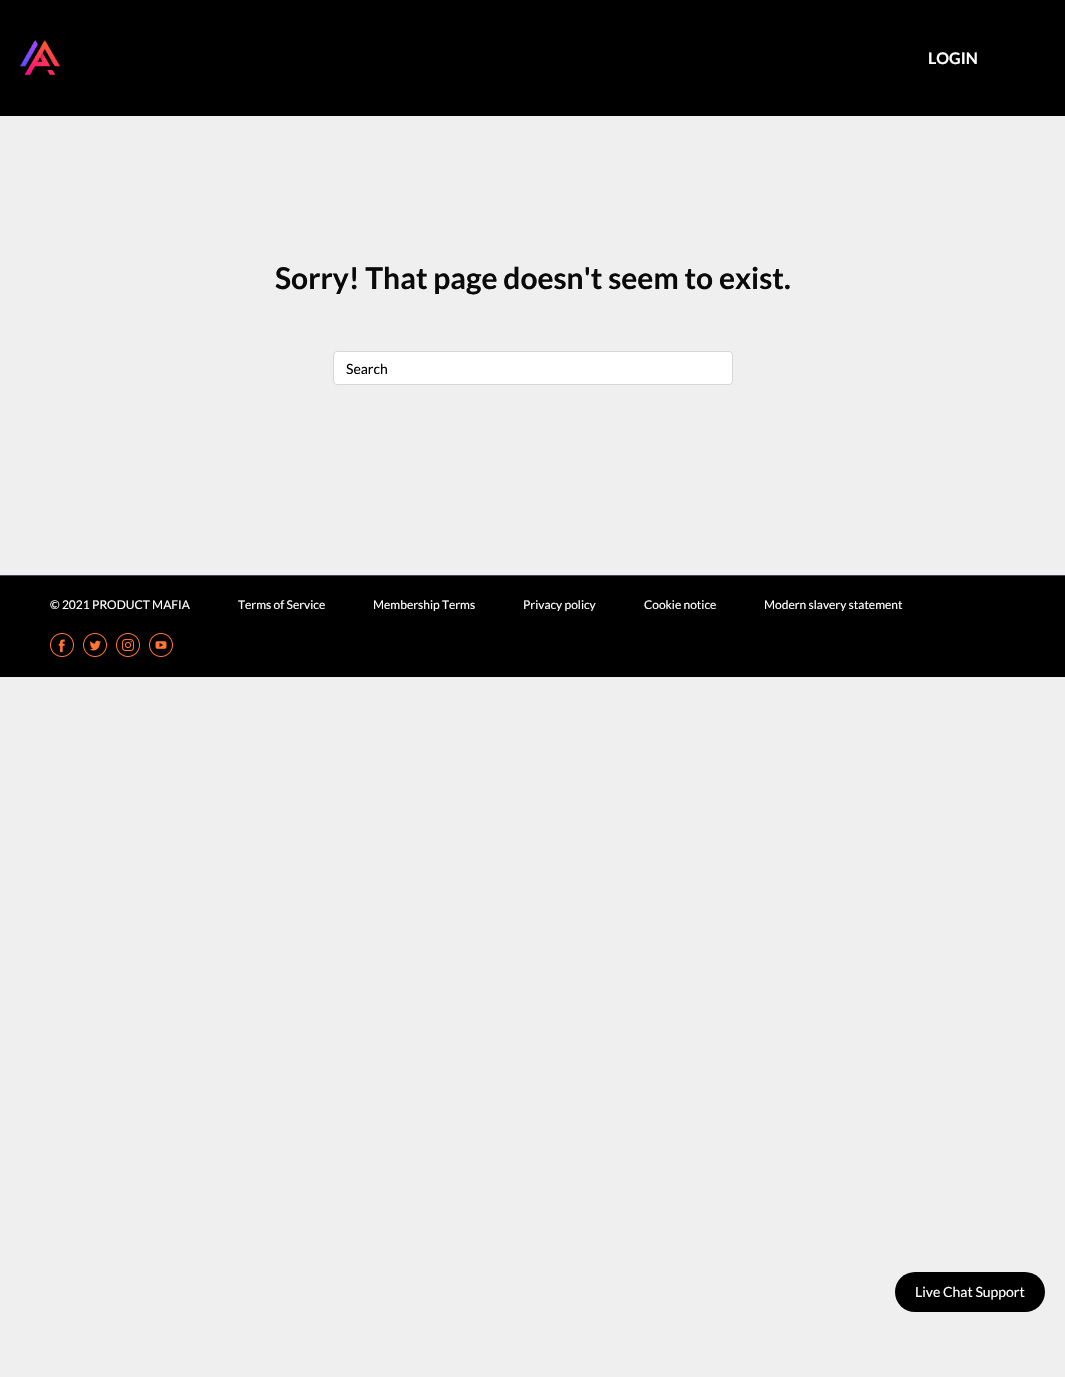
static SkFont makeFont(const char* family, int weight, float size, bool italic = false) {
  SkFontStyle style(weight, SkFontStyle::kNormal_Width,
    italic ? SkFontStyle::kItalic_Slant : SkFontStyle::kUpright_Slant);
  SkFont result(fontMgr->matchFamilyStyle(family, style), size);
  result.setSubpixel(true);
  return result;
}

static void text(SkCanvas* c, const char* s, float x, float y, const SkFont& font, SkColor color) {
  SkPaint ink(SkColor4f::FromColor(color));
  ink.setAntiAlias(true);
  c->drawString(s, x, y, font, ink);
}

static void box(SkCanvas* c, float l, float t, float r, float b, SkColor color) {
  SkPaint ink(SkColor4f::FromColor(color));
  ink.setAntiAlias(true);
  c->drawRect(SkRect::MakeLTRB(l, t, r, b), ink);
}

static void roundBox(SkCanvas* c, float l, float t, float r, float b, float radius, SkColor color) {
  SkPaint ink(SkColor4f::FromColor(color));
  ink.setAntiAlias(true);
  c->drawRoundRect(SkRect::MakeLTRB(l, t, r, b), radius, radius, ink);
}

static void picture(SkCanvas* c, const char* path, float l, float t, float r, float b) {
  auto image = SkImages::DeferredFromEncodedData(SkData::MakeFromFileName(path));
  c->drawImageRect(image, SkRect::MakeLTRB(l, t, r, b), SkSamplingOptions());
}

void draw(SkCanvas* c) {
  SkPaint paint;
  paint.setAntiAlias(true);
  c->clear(0xffefefef);
  box(c, 0, 0, 1065, 116, 0xff000000);
  picture(c, "img_01.png", 20, 40, 60, 75);
  SkFont face1 = makeFont("Lato", 700, 16);
  text(c, "LOGIN", 928, 64, face1, 0xffffffff);
  SkFont face2 = makeFont("Lato", 700, 30);
  text(c, "Sorry! That page doesn't seem to exist.", 275, 289, face2, 0xff0a0a0a);
  paint.setColor(0xffffffff);
  c->drawRoundRect(SkRect::MakeLTRB(333.5f, 351.5f, 732.5f, 384.5f), 3.5f, 3.5f, paint);
  paint.setStyle(SkPaint::kStroke_Style);
  paint.setStrokeWidth(1);
  paint.setColor(0xffd6d6d6);
  c->drawRoundRect(SkRect::MakeLTRB(333.5f, 351.5f, 732.5f, 384.5f), 3.5f, 3.5f, paint);
  SkFont face3 = makeFont("Lato", 400, 14);
  text(c, "Search", 346, 374, face3, 0xff000000);
  box(c, 0, 576, 1065, 677, 0xff000000);
  box(c, 0, 575, 1065, 576, 0xff474a51);
  SkFont face4 = makeFont("Lato", 400, 12);
  text(c, "© 2021 PRODUCT MAFIA", 50, 609, face4, 0xffffffff);
  text(c, "Terms of Service", 238, 609, face4, 0xffffffff);
  text(c, "Membership Terms", 373, 609, face4, 0xffffffff);
  text(c, "Privacy policy", 523, 609, face4, 0xffffffff);
  text(c, "Cookie notice", 644, 609, face4, 0xffffffff);
  text(c, "Modern slavery statement", 764, 609, face4, 0xffffffff);
  picture(c, "img_02.png", 50, 633, 74, 657);
  picture(c, "img_03.png", 83, 633, 107, 657);
  picture(c, "img_04.png", 116, 633, 140, 657);
  picture(c, "img_05.png", 149, 633, 173, 657);
  roundBox(c, 895, 1272, 1045, 1312, 20, 0xff000000);
  text(c, "Live Chat Support", 915, 1297, face3, 0xffffffff);
}
